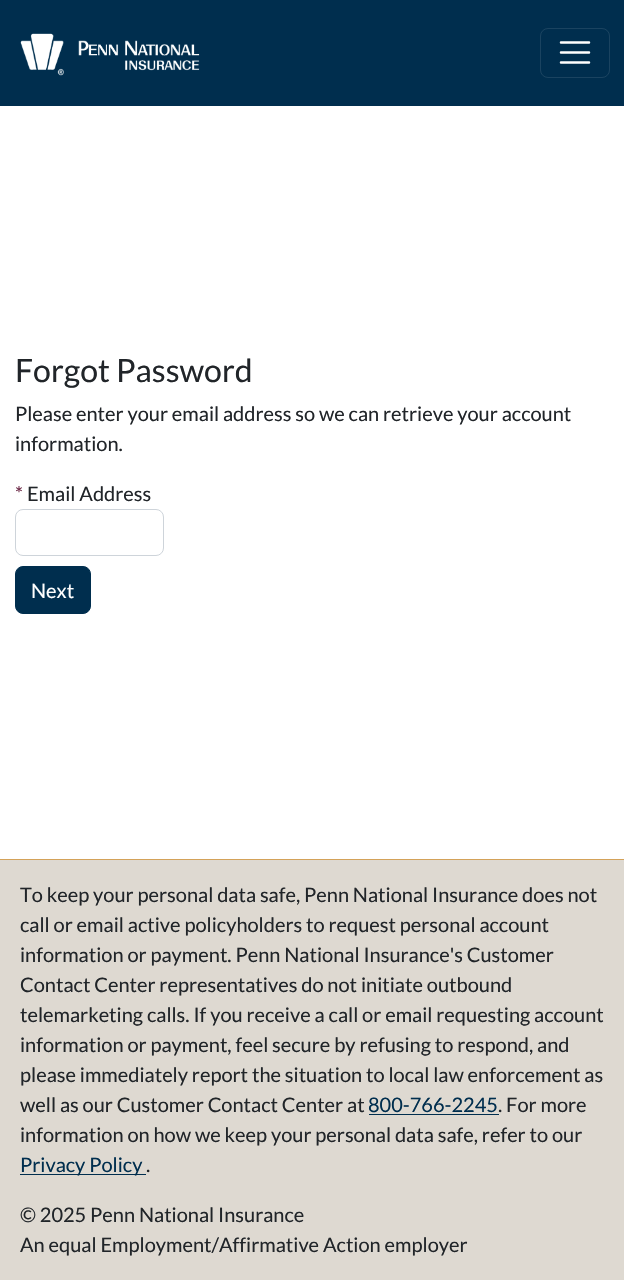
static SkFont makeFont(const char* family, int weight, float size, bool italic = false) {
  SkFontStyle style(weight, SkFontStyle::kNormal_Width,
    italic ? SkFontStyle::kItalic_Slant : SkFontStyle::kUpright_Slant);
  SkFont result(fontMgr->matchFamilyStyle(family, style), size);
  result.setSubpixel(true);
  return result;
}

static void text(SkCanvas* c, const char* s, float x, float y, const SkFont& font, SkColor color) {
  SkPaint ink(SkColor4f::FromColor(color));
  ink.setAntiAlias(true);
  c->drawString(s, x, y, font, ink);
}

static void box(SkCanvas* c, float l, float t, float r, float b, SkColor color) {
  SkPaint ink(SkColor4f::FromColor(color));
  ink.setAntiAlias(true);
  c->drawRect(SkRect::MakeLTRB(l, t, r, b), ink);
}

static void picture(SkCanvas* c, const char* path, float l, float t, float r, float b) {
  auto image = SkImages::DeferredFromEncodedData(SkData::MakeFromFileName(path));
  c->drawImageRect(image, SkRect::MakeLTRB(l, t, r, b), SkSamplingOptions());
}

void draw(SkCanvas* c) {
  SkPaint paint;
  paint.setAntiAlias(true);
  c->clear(0xffffffff);
  box(c, 0, 0, 624, 106, 0xff002e4e);
  picture(c, "img_01.png", 20, 33, 200, 76);
  paint.setStyle(SkPaint::kStroke_Style);
  paint.setStrokeWidth(1);
  paint.setColor(0xff1a4360);
  c->drawRoundRect(SkRect::MakeLTRB(540.5f, 28.5f, 609.5f, 77.5f), 7.5f, 7.5f, paint);
  paint.setStrokeWidth(2.5f);
  paint.setStrokeCap(SkPaint::kRound_Cap);
  paint.setColor(0xffffffff);
  c->drawPath(SkPathBuilder().moveTo(561, 42.5f).lineTo(589, 42.5f).moveTo(561, 52.5f).lineTo(589, 52.5f).moveTo(561, 62.5f).lineTo(589, 62.5f).detach(), paint);
  SkFont face1 = makeFont("Lato", 400, 32);
  text(c, "Forgot Password", 15, 382, face1, 0xff212529);
  SkFont face2 = makeFont("Lato", 400, 20);
  text(c, "Please enter your email address so we can retrieve your account", 15, 421, face2, 0xff212529);
  text(c, "information.", 15, 451, face2, 0xff212529);
  text(c, "*", 15, 501, face2, 0xff6b2745);
  text(c, "Email Address", 27, 501, face2, 0xff212529);
  paint.setStrokeWidth(1);
  paint.setStrokeCap(SkPaint::kButt_Cap);
  paint.setColor(0xffced4da);
  c->drawRoundRect(SkRect::MakeLTRB(15.5f, 509.5f, 163.5f, 555.5f), 7.5f, 7.5f, paint);
  paint.setStyle(SkPaint::kFill_Style);
  paint.setColor(0xff002e4e);
  c->drawRoundRect(SkRect::MakeLTRB(15.5f, 566.5f, 90.5f, 613.5f), 7.5f, 7.5f, paint);
  paint.setStyle(SkPaint::kStroke_Style);
  c->drawRoundRect(SkRect::MakeLTRB(15.5f, 566.5f, 90.5f, 613.5f), 7.5f, 7.5f, paint);
  text(c, "Next", 31, 598, face2, 0xffffffff);
  box(c, 0, 860, 624, 1280, 0xffded9d1);
  box(c, 0, 859, 624, 860, 0xffd4a259);
  text(c, "To keep your personal data safe, Penn National Insurance does not", 20, 902, face2, 0xff212529);
  text(c, "call or email active policyholders to request personal account", 20, 932, face2, 0xff212529);
  text(c, "information or payment. Penn National Insurance's Customer", 20, 962, face2, 0xff212529);
  text(c, "Contact Center representatives do not initiate outbound", 20, 992, face2, 0xff212529);
  text(c, "telemarketing calls. If you receive a call or email requesting account", 20, 1022, face2, 0xff212529);
  text(c, "information or payment, feel secure by refusing to respond, and", 20, 1052, face2, 0xff212529);
  text(c, "please immediately report the situation to local law enforcement as", 20, 1082, face2, 0xff212529);
  text(c, "well as our Customer Contact Center at", 20, 1112, face2, 0xff212529);
  text(c, "800-766-2245", 368, 1112, face2, 0xff002e4e);
  box(c, 369, 1114, 499, 1115, 0xff002e4e);
  text(c, ". For more", 498, 1112, face2, 0xff212529);
  text(c, "information on how we keep your personal data safe, refer to our", 20, 1142, face2, 0xff212529);
  box(c, 20, 1174, 146, 1175, 0xff002e4e);
  text(c, "Privacy Policy", 20, 1172, face2, 0xff002e4e);
  text(c, ".", 146, 1172, face2, 0xff212529);
  text(c, "© 2025 Penn National Insurance", 20, 1222, face2, 0xff212529);
  text(c, "An equal Employment/Affirmative Action employer", 20, 1252, face2, 0xff212529);
}
